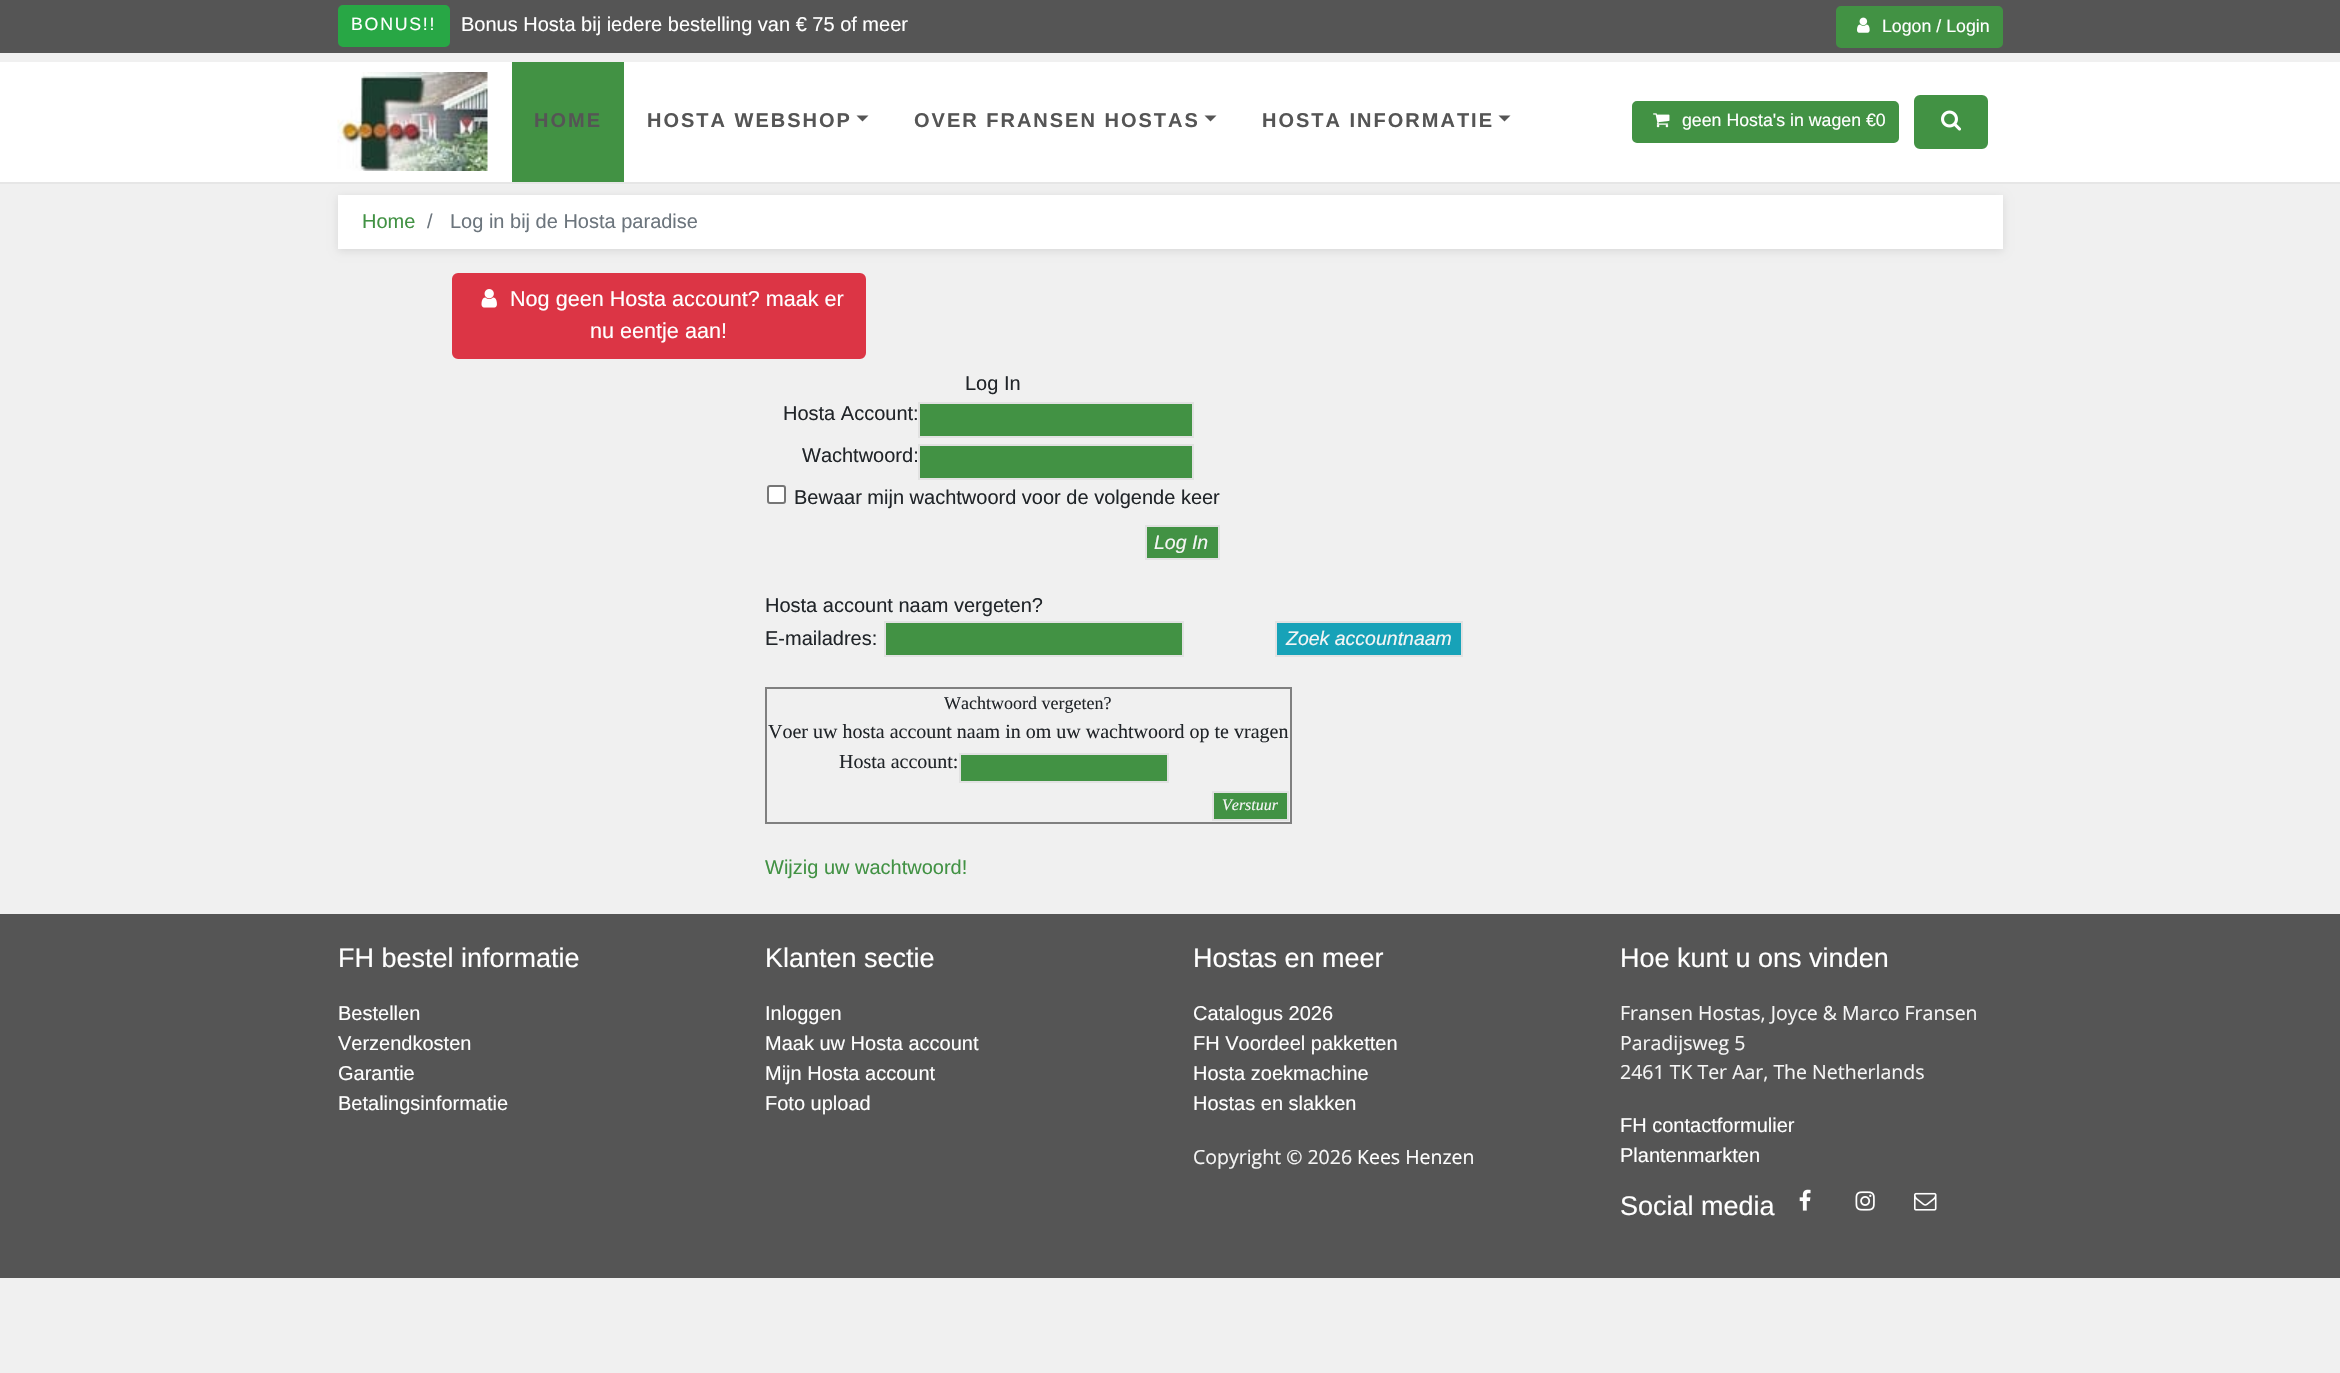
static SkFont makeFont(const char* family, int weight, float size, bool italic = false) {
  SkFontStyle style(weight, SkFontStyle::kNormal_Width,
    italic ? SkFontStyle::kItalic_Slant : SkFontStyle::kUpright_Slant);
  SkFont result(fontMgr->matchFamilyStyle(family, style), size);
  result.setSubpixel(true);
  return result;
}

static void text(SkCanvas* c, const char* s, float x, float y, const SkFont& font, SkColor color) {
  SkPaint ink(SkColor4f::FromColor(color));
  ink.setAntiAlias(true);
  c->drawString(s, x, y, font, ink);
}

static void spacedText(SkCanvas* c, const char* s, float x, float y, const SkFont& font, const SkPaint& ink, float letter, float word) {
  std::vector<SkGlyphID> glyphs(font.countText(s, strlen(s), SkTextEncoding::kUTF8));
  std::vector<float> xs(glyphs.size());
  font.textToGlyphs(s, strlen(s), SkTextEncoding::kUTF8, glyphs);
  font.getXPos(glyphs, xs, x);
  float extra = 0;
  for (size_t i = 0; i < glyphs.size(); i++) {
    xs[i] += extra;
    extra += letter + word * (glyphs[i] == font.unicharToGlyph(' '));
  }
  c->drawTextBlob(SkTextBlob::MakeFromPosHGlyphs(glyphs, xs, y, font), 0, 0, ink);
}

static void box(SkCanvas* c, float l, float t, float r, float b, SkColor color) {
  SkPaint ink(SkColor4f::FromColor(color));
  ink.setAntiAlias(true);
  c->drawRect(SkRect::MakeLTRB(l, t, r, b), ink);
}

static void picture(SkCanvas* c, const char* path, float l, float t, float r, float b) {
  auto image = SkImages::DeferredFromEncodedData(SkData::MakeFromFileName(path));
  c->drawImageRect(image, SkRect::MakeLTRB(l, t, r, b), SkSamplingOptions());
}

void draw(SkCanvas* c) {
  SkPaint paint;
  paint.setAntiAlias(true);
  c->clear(0xfff0f0f0);
  box(c, 0, 0, 2340, 53, 0xff555555);
  paint.setColor(0xff28a745);
  c->drawRoundRect(SkRect::MakeLTRB(339, 6, 449, 46), 4, 4, paint);
  paint.setStyle(SkPaint::kStroke_Style);
  paint.setStrokeWidth(2);
  c->drawRoundRect(SkRect::MakeLTRB(339, 6, 449, 46), 4, 4, paint);
  SkFont face1 = makeFont("Liberation Sans", 400, 17.75f);
  paint.setStyle(SkPaint::kFill_Style);
  paint.setColor(0xffffffff);
  spacedText(c, "BONUS!!", 351, 30, face1, paint, 1.75f, 0);
  SkFont face2 = makeFont("Liberation Sans", 400, 20);
  text(c, "Bonus Hosta bij iedere bestelling van € 75 of meer", 461, 31, face2, 0xffffffff);
  paint.setColor(0xff429244);
  c->drawRoundRect(SkRect::MakeLTRB(1837, 7, 2002, 47), 4, 4, paint);
  paint.setStyle(SkPaint::kStroke_Style);
  c->drawRoundRect(SkRect::MakeLTRB(1837, 7, 2002, 47), 4, 4, paint);
  picture(c, "img_01.png", 1857, 17, 1870, 33);
  text(c, "Logon / Login", 1882, 32, face1, 0xffffffff);
  box(c, 0, 62, 2340, 182, 0xffffffff);
  box(c, 0, 182, 2340, 184, 0xffe6e6e6);
  picture(c, "img_02.png", 337, 72, 488, 171);
  box(c, 512, 62, 624, 182, 0xff429244);
  SkFont face3 = makeFont("Liberation Sans", 700, 20);
  paint.setStyle(SkPaint::kFill_Style);
  paint.setColor(0xff555555);
  spacedText(c, "HOME", 534, 127, face3, paint, 2, 0);
  spacedText(c, "HOSTA WEBSHOP", 647, 127, face3, paint, 2, 0);
  c->drawPath(SkPathBuilder().moveTo(856.5f, 115.5f).lineTo(868.5f, 115.5f).lineTo(862.5f, 121.5f).close().detach(), paint);
  spacedText(c, "OVER FRANSEN HOSTAS", 914, 127, face3, paint, 2, 0);
  c->drawPath(SkPathBuilder().moveTo(1204.5f, 115.5f).lineTo(1216.5f, 115.5f).lineTo(1210.5f, 121.5f).close().detach(), paint);
  spacedText(c, "HOSTA INFORMATIE", 1262, 127, face3, paint, 2, 0);
  c->drawPath(SkPathBuilder().moveTo(1498.5f, 115.5f).lineTo(1510.5f, 115.5f).lineTo(1504.5f, 121.5f).close().detach(), paint);
  paint.setColor(0xff429244);
  c->drawRoundRect(SkRect::MakeLTRB(1633, 102, 1898, 142), 4, 4, paint);
  paint.setStyle(SkPaint::kStroke_Style);
  c->drawRoundRect(SkRect::MakeLTRB(1633, 102, 1898, 142), 4, 4, paint);
  picture(c, "img_03.png", 1653, 113, 1670, 128);
  text(c, "geen Hosta's in wagen €0", 1682, 126, face1, 0xffffffff);
  paint.setStyle(SkPaint::kFill_Style);
  c->drawRoundRect(SkRect::MakeLTRB(1915, 96, 1987, 148), 5, 5, paint);
  paint.setStyle(SkPaint::kStroke_Style);
  c->drawRoundRect(SkRect::MakeLTRB(1915, 96, 1987, 148), 5, 5, paint);
  picture(c, "img_04.png", 1941, 110, 1961, 131);
  paint.setStyle(SkPaint::kFill_Style);
  paint.setColor(0x1a000000);
  paint.setMaskFilter(SkMaskFilter::MakeBlur(kNormal_SkBlurStyle, 4));
  c->drawRect(SkRect::MakeLTRB(338, 197, 2003, 251), paint);
  paint.setMaskFilter(nullptr);
  box(c, 338, 195, 2003, 249, 0xffffffff);
  text(c, "Home", 362, 228, face2, 0xff429244);
  text(c, "/", 427, 228, face2, 0xff6c757d);
  text(c, "Log in bij de Hosta paradise", 450, 228, face2, 0xff6c757d);
  paint.setColor(0xffdc3545);
  c->drawRoundRect(SkRect::MakeLTRB(453, 274, 865, 358), 5, 5, paint);
  paint.setStyle(SkPaint::kStroke_Style);
  c->drawRoundRect(SkRect::MakeLTRB(453, 274, 865, 358), 5, 5, paint);
  picture(c, "img_05.png", 481, 289, 497, 308);
  SkFont face4 = makeFont("Liberation Sans", 400, 21.6f);
  text(c, "Nog geen Hosta account? maak er", 510, 306, face4, 0xffffffff);
  text(c, "nu eentje aan!", 590, 338, face4, 0xffffffff);
  text(c, "Log In", 965, 390, face2, 0xff212529);
  text(c, "Hosta Account:", 783, 420, face2, 0xff212529);
  paint.setStyle(SkPaint::kFill_Style);
  paint.setColor(0xff429244);
  c->drawRect(SkRect::MakeLTRB(919, 403, 1193, 437), paint);
  paint.setStyle(SkPaint::kStroke_Style);
  paint.setColor(0xffe2e2e2);
  c->drawRect(SkRect::MakeLTRB(919, 403, 1193, 437), paint);
  text(c, "Wachtwoord:", 802, 462, face2, 0xff212529);
  paint.setStyle(SkPaint::kFill_Style);
  paint.setColor(0xff429244);
  c->drawRect(SkRect::MakeLTRB(919, 445, 1193, 479), paint);
  paint.setStyle(SkPaint::kStroke_Style);
  paint.setColor(0xffe2e2e2);
  c->drawRect(SkRect::MakeLTRB(919, 445, 1193, 479), paint);
  paint.setStyle(SkPaint::kFill_Style);
  paint.setColor(0xffffffff);
  c->drawRoundRect(SkRect::MakeLTRB(768, 486, 785, 503), 2, 2, paint);
  paint.setStyle(SkPaint::kStroke_Style);
  paint.setColor(0xff767676);
  c->drawRoundRect(SkRect::MakeLTRB(768, 486, 785, 503), 2, 2, paint);
  text(c, "Bewaar mijn wachtwoord voor de volgende keer", 794, 504, face2, 0xff212529);
  paint.setStyle(SkPaint::kFill_Style);
  paint.setColor(0xff429244);
  c->drawRect(SkRect::MakeLTRB(1146, 526, 1219, 559), paint);
  paint.setStyle(SkPaint::kStroke_Style);
  paint.setColor(0xffe2e2e2);
  c->drawRect(SkRect::MakeLTRB(1146, 526, 1219, 559), paint);
  SkFont face5 = makeFont("Liberation Sans", 400, 19.5f, true);
  text(c, "Log In", 1154, 549, face5, 0xfff5f5f5);
  text(c, "Hosta account naam vergeten?", 765, 612, face2, 0xff212529);
  text(c, "E-mailadres:", 765, 645, face2, 0xff212529);
  paint.setStyle(SkPaint::kFill_Style);
  paint.setColor(0xff429244);
  c->drawRect(SkRect::MakeLTRB(885, 622, 1183, 656), paint);
  paint.setStyle(SkPaint::kStroke_Style);
  paint.setColor(0xffe2e2e2);
  c->drawRect(SkRect::MakeLTRB(885, 622, 1183, 656), paint);
  paint.setStyle(SkPaint::kFill_Style);
  paint.setColor(0xff17a2b8);
  c->drawRect(SkRect::MakeLTRB(1276, 622, 1462, 656), paint);
  paint.setStyle(SkPaint::kStroke_Style);
  paint.setColor(0xffe2e2e2);
  c->drawRect(SkRect::MakeLTRB(1276, 622, 1462, 656), paint);
  text(c, "Zoek accountnaam", 1286, 645, face5, 0xfff5f5f5);
  box(c, 765, 687, 1292, 689, 0xff808080);
  box(c, 1290, 687, 1292, 824, 0xff808080);
  box(c, 765, 822, 1292, 824, 0xff808080);
  box(c, 765, 687, 767, 824, 0xff808080);
  SkFont face6 = makeFont("Liberation Serif", 400, 18);
  text(c, "Wachtwoord vergeten?", 944, 709, face6, 0xff212529);
  SkFont face7 = makeFont("Liberation Serif", 400, 20);
  text(c, "Voer uw hosta account naam in om uw wachtwoord op te vragen", 768, 738, face7, 0xff212529);
  text(c, "Hosta account:", 839, 768, face7, 0xff212529);
  paint.setStyle(SkPaint::kFill_Style);
  paint.setColor(0xff429244);
  c->drawRect(SkRect::MakeLTRB(960, 754, 1168, 782), paint);
  paint.setStyle(SkPaint::kStroke_Style);
  paint.setColor(0xffe2e2e2);
  c->drawRect(SkRect::MakeLTRB(960, 754, 1168, 782), paint);
  paint.setStyle(SkPaint::kFill_Style);
  paint.setColor(0xff429244);
  c->drawRect(SkRect::MakeLTRB(1213, 792, 1288, 820), paint);
  paint.setStyle(SkPaint::kStroke_Style);
  paint.setColor(0xffe2e2e2);
  c->drawRect(SkRect::MakeLTRB(1213, 792, 1288, 820), paint);
  SkFont face8 = makeFont("Liberation Serif", 400, 16, true);
  text(c, "Verstuur", 1222, 810, face8, 0xfff5f5f5);
  text(c, "Wijzig uw wachtwoord!", 765, 874, face2, 0xff429244);
  box(c, 0, 914, 2340, 1278, 0xff555555);
  SkFont face9 = makeFont("Liberation Sans", 400, 27);
  text(c, "FH bestel informatie", 338, 967, face9, 0xffffffff);
  text(c, "Bestellen", 338, 1020, face2, 0xffffffff);
  text(c, "Verzendkosten", 338, 1050, face2, 0xffffffff);
  text(c, "Garantie", 338, 1080, face2, 0xffffffff);
  text(c, "Betalingsinformatie", 338, 1110, face2, 0xffffffff);
  text(c, "Klanten sectie", 765, 967, face9, 0xffffffff);
  text(c, "Inloggen", 765, 1020, face2, 0xffffffff);
  text(c, "Maak uw Hosta account", 765, 1050, face2, 0xffffffff);
  text(c, "Mijn Hosta account", 765, 1080, face2, 0xffffffff);
  text(c, "Foto upload", 765, 1110, face2, 0xffffffff);
  text(c, "Hostas en meer", 1193, 967, face9, 0xffffffff);
  text(c, "Catalogus 2026", 1193, 1020, face2, 0xffffffff);
  text(c, "FH Voordeel pakketten", 1193, 1050, face2, 0xffffffff);
  text(c, "Hosta zoekmachine", 1193, 1080, face2, 0xffffffff);
  text(c, "Hostas en slakken", 1193, 1110, face2, 0xffffffff);
  SkFont face10 = makeFont("Open Sans", 400, 19.5f);
  text(c, "Copyright © 2026", 1193, 1164, face10, 0xfff5f5f5);
  text(c, "Kees Henzen", 1357, 1164, face10, 0xffffffff);
  text(c, "Hoe kunt u ons vinden", 1620, 967, face9, 0xffffffff);
  text(c, "Fransen Hostas, Joyce & Marco Fransen", 1620, 1020, face10, 0xfff5f5f5);
  text(c, "Paradijsweg 5", 1620, 1050, face10, 0xfff5f5f5);
  text(c, "2461 TK Ter Aar, The Netherlands", 1620, 1079, face10, 0xfff5f5f5);
  text(c, "FH contactformulier", 1620, 1132, face2, 0xffffffff);
  text(c, "Plantenmarkten", 1620, 1162, face2, 0xffffffff);
  text(c, "Social media", 1620, 1215, face9, 0xffffffff);
  picture(c, "img_06.png", 1799, 1189, 1811, 1211);
  picture(c, "img_07.png", 1855, 1191, 1875, 1211);
  picture(c, "img_08.png", 1914, 1192, 1937, 1211);
}
